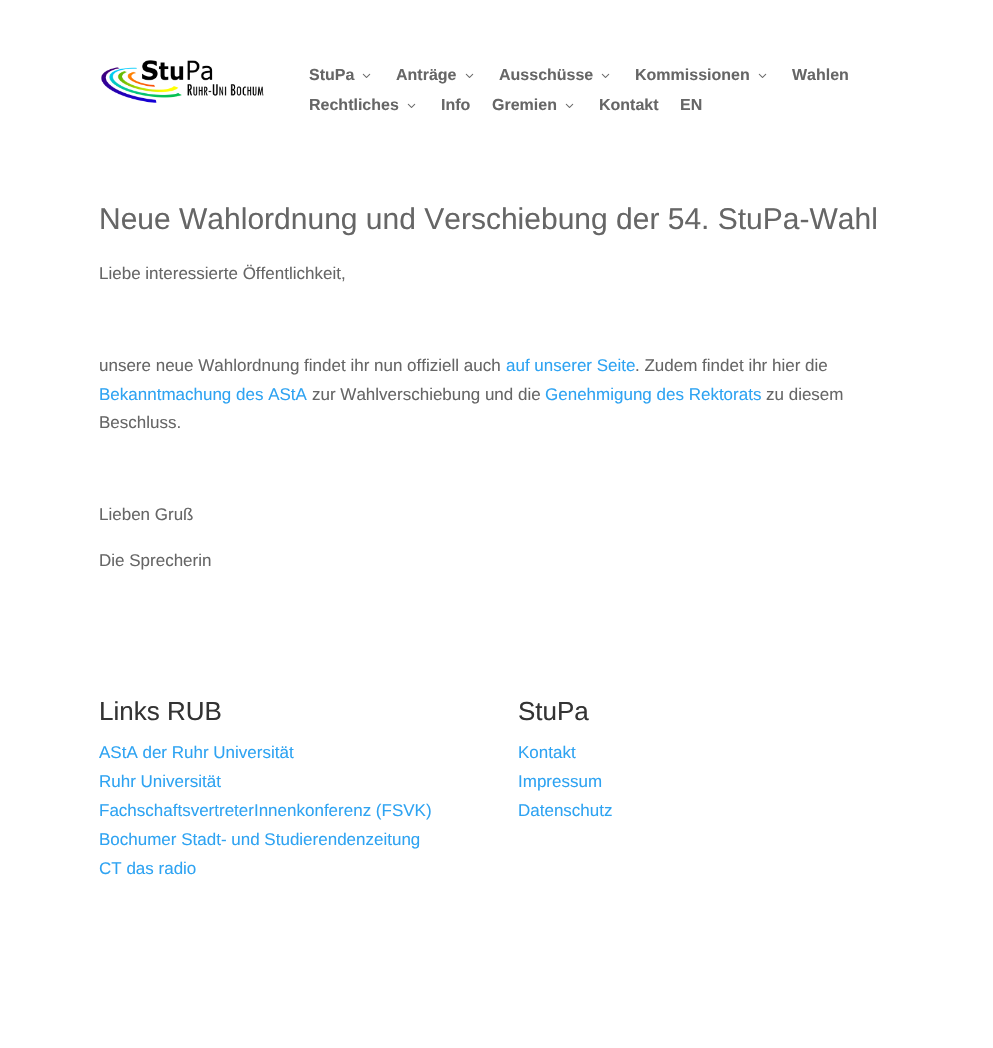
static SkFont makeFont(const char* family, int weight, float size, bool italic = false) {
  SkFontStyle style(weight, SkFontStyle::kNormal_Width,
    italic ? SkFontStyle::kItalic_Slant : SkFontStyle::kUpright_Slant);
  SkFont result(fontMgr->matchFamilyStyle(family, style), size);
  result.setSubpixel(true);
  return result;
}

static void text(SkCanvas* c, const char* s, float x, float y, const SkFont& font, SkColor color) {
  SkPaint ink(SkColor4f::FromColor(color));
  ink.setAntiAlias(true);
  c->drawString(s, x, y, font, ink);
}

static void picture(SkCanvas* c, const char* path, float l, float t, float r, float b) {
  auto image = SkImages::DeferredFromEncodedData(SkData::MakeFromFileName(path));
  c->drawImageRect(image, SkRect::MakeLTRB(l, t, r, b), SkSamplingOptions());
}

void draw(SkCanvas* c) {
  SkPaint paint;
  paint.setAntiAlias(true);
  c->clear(0xffffffff);
  picture(c, "img_01.png", 101, 60, 264, 103);
  SkFont face1 = makeFont("Liberation Sans", 700, 16);
  text(c, "StuPa", 309, 80, face1, 0xff666666);
  picture(c, "img_02.png", 362, 73, 371, 78);
  text(c, "Anträge", 396, 80, face1, 0xff666666);
  picture(c, "img_02.png", 465, 73, 474, 78);
  text(c, "Ausschüsse", 499, 80, face1, 0xff666666);
  picture(c, "img_02.png", 601, 73, 610, 78);
  text(c, "Kommissionen", 635, 80, face1, 0xff666666);
  picture(c, "img_02.png", 758, 73, 767, 78);
  text(c, "Wahlen", 792, 80, face1, 0xff666666);
  text(c, "Rechtliches", 309, 110, face1, 0xff666666);
  picture(c, "img_02.png", 407, 103, 416, 108);
  text(c, "Info", 441, 110, face1, 0xff666666);
  text(c, "Gremien", 492, 110, face1, 0xff666666);
  picture(c, "img_02.png", 565, 103, 574, 108);
  text(c, "Kontakt", 599, 110, face1, 0xff666666);
  text(c, "EN", 680, 110, face1, 0xff666666);
  SkFont face2 = makeFont("Liberation Sans", 400, 30);
  text(c, "Neue Wahlordnung und Verschiebung der 54. StuPa-Wahl", 99, 229, face2, 0xff666666);
  SkFont face3 = makeFont("Liberation Sans", 400, 17);
  text(c, "Liebe interessierte Öffentlichkeit,", 99, 279, face3, 0xff666666);
  text(c, "unsere neue Wahlordnung findet ihr nun offiziell auch", 99, 371, face3, 0xff666666);
  text(c, "auf unserer Seite", 506, 371, face3, 0xff2ea3f2);
  text(c, ". Zudem findet ihr hier die", 635, 371, face3, 0xff666666);
  text(c, "Bekanntmachung des AStA", 99, 400, face3, 0xff2ea3f2);
  text(c, "zur Wahlverschiebung und die", 312, 400, face3, 0xff666666);
  text(c, "Genehmigung des Rektorats", 545, 400, face3, 0xff2ea3f2);
  text(c, "zu diesem", 766, 400, face3, 0xff666666);
  text(c, "Beschluss.", 99, 428, face3, 0xff666666);
  text(c, "Lieben Gruß", 99, 520, face3, 0xff666666);
  text(c, "Die Sprecherin", 99, 566, face3, 0xff666666);
  SkFont face4 = makeFont("Liberation Sans", 400, 26);
  text(c, "Links RUB", 99, 720, face4, 0xff333333);
  text(c, "AStA der Ruhr Universität", 99, 758, face3, 0xff2ea3f2);
  text(c, "Ruhr Universität", 99, 787, face3, 0xff2ea3f2);
  text(c, "FachschaftsvertreterInnenkonferenz (FSVK)", 99, 816, face3, 0xff2ea3f2);
  text(c, "Bochumer Stadt- und Studierendenzeitung", 99, 845, face3, 0xff2ea3f2);
  text(c, "CT das radio", 99, 874, face3, 0xff2ea3f2);
  text(c, "StuPa", 518, 720, face4, 0xff333333);
  text(c, "Kontakt", 518, 758, face3, 0xff2ea3f2);
  text(c, "Impressum", 518, 787, face3, 0xff2ea3f2);
  text(c, "Datenschutz", 518, 816, face3, 0xff2ea3f2);
}
